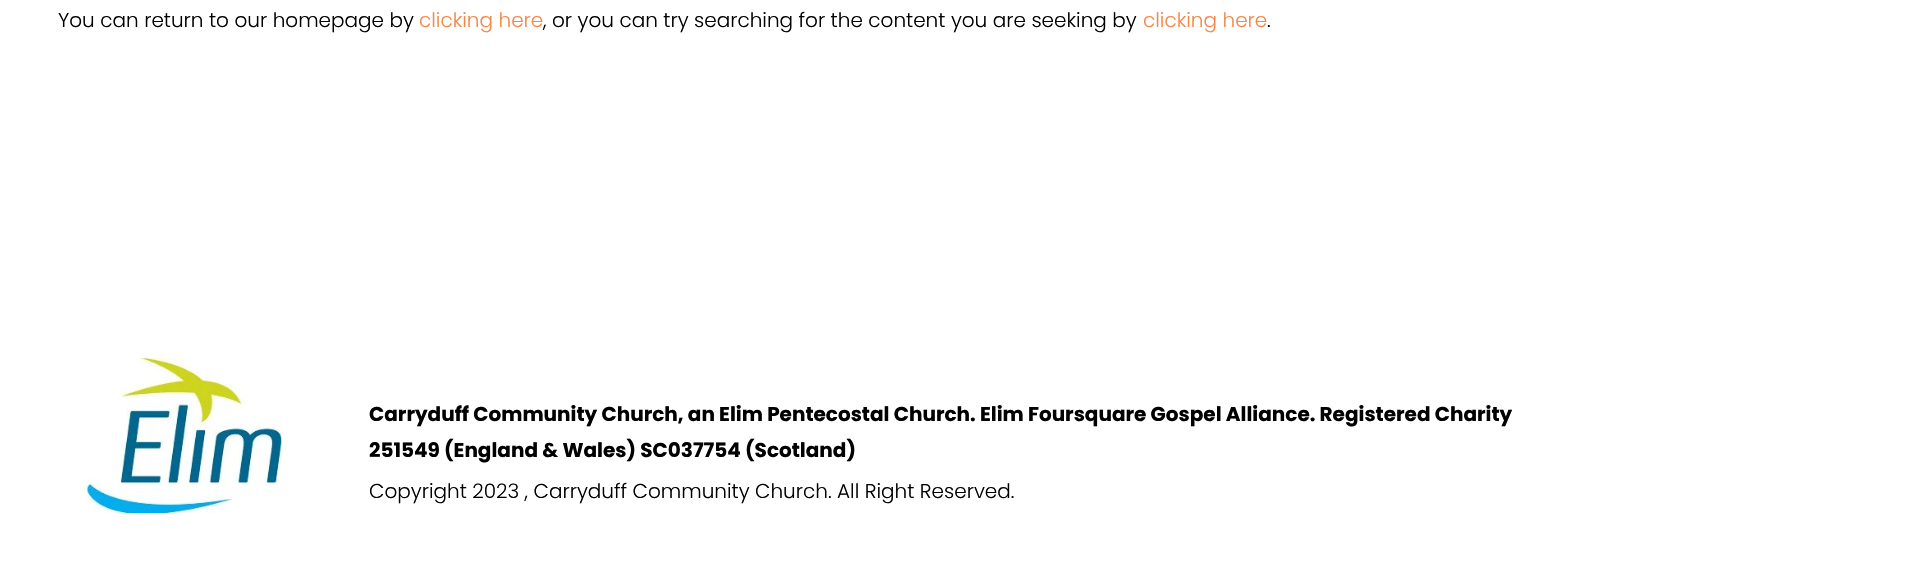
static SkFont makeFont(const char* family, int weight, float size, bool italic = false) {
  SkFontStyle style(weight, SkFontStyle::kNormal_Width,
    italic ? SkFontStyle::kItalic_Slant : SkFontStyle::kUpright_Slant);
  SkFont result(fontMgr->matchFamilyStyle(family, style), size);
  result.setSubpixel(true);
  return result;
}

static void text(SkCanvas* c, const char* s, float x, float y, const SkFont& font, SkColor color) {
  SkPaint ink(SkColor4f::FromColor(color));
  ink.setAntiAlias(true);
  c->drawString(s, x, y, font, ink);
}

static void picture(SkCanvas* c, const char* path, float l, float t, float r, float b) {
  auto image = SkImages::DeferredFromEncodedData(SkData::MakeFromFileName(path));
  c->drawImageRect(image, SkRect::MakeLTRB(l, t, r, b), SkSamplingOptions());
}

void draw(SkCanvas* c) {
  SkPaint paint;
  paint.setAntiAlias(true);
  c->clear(0xffffffff);
  SkFont face1 = makeFont("Poppins", 300, 20);
  text(c, "You can return to our homepage by", 58, 27, face1, 0xff000000);
  text(c, "clicking here", 419, 27, face1, 0xfff48847);
  text(c, ", or you can try searching for the content you are seeking by", 543, 27, face1, 0xff000000);
  text(c, "clicking here", 1143, 27, face1, 0xfff48847);
  text(c, ".", 1267, 27, face1, 0xff000000);
  picture(c, "img_01.png", 87, 358, 282, 514);
  SkFont face2 = makeFont("Poppins", 700, 20);
  text(c, "Carryduff Community Church, an Elim Pentecostal Church. Elim Foursquare Gospel Alliance. Registered Charity", 369, 421, face2, 0xff000000);
  text(c, "251549 (England & Wales) SC037754 (Scotland)", 369, 457, face2, 0xff000000);
  text(c, "Copyright 2023 , Carryduff Community Church. All Right Reserved.", 369, 498, face1, 0xff000000);
}
